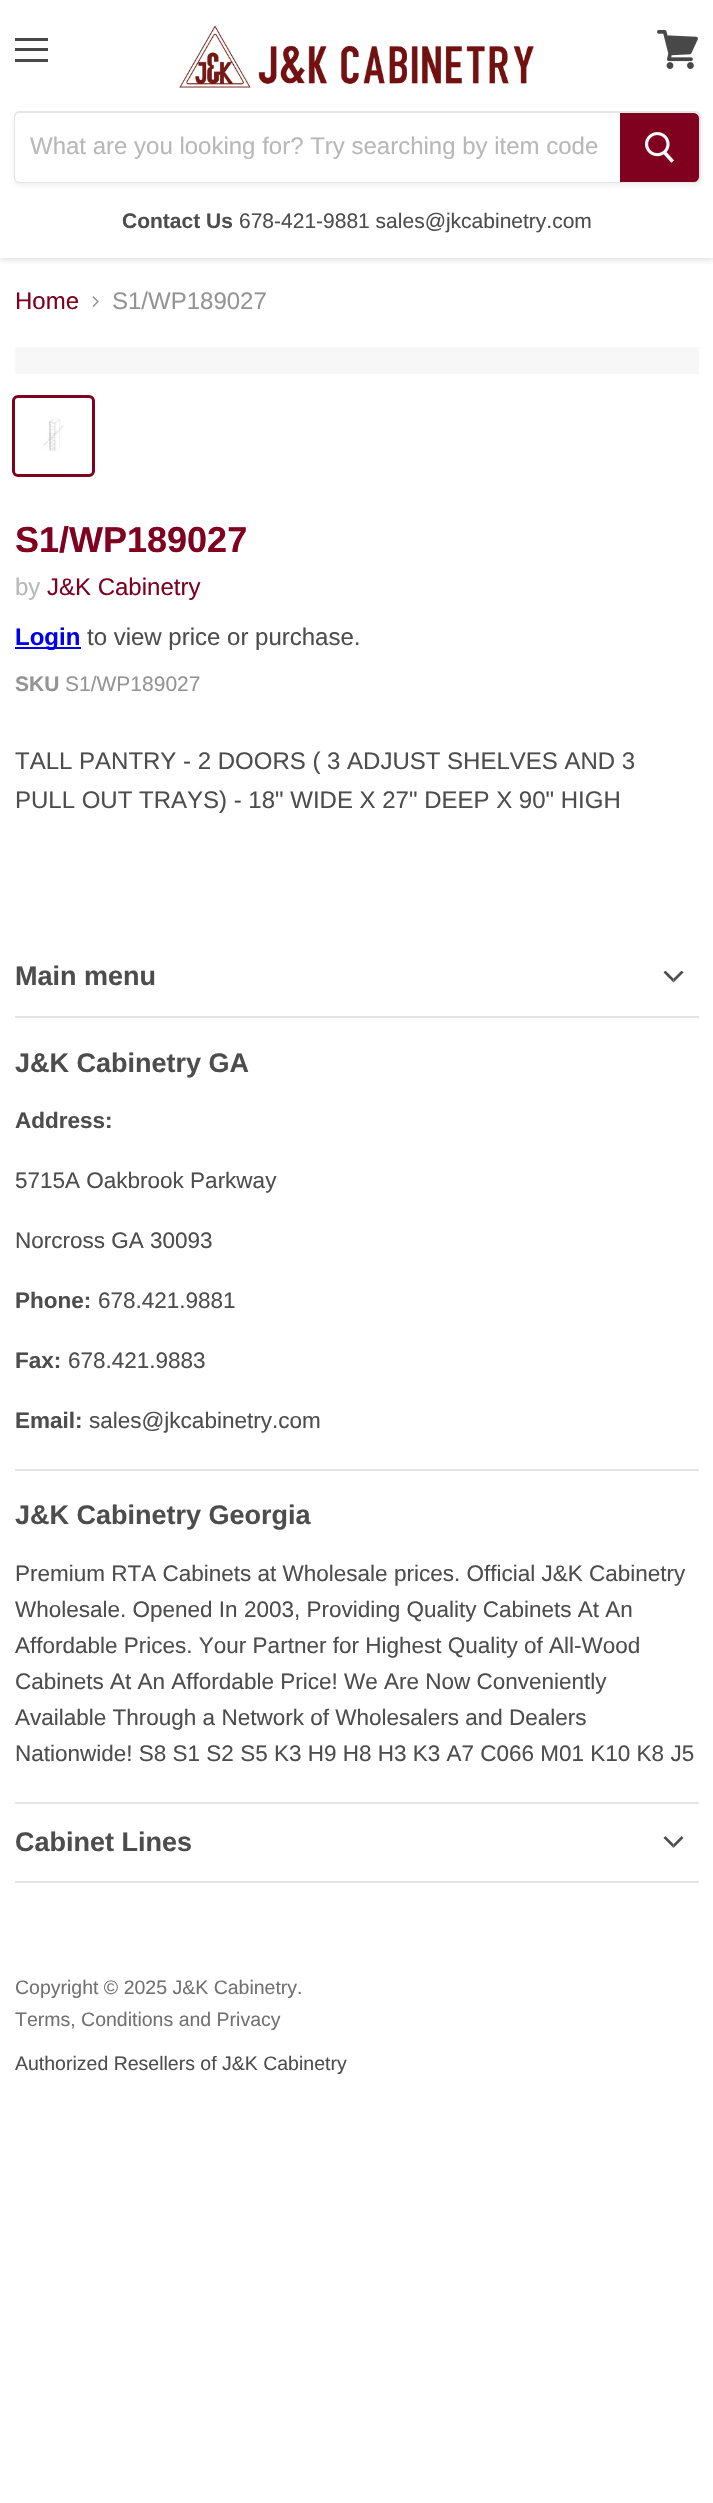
static SkFont makeFont(const char* family, int weight, float size, bool italic = false) {
  SkFontStyle style(weight, SkFontStyle::kNormal_Width,
    italic ? SkFontStyle::kItalic_Slant : SkFontStyle::kUpright_Slant);
  SkFont result(fontMgr->matchFamilyStyle(family, style), size);
  result.setSubpixel(true);
  return result;
}

static void text(SkCanvas* c, const char* s, float x, float y, const SkFont& font, SkColor color) {
  SkPaint ink(SkColor4f::FromColor(color));
  ink.setAntiAlias(true);
  c->drawString(s, x, y, font, ink);
}

static void box(SkCanvas* c, float l, float t, float r, float b, SkColor color) {
  SkPaint ink(SkColor4f::FromColor(color));
  ink.setAntiAlias(true);
  c->drawRect(SkRect::MakeLTRB(l, t, r, b), ink);
}

static void picture(SkCanvas* c, const char* path, float l, float t, float r, float b) {
  auto image = SkImages::DeferredFromEncodedData(SkData::MakeFromFileName(path));
  c->drawImageRect(image, SkRect::MakeLTRB(l, t, r, b), SkSamplingOptions());
}

void draw(SkCanvas* c) {
  SkPaint paint;
  paint.setAntiAlias(true);
  c->clear(0xffffffff);
  c->save();
  c->clipRect(SkRect::MakeLTRB(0, 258, 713, 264));
  paint.setColor(0x407f7f7f);
  paint.setMaskFilter(SkMaskFilter::MakeBlur(kNormal_SkBlurStyle, 3));
  c->drawRect(SkRect::MakeLTRB(0, 2, 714, 260), paint);
  paint.setMaskFilter(nullptr);
  c->restore();
  box(c, 15, 38, 48, 41, 0xff484848);
  box(c, 15, 48, 48, 51, 0xff484848);
  box(c, 15, 59, 48, 62, 0xff484848);
  picture(c, "img_01.png", 657, 30, 698, 69);
  picture(c, "img_02.png", 179, 25, 534, 88);
  c->save();
  c->clipPath(SkPathBuilder(SkPathFillType::kEvenOdd).moveTo(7, 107).lineTo(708, 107).lineTo(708, 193).lineTo(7, 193).close().moveTo(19, 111).lineTo(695, 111).cubicTo(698.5f, 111, 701, 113.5f, 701, 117).lineTo(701, 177).cubicTo(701, 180.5f, 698.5f, 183, 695, 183).lineTo(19, 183).cubicTo(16, 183, 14, 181, 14, 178).lineTo(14, 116).cubicTo(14, 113, 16, 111, 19, 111).close().detach(), true);
  paint.setColor(0x1c7f7f7f);
  paint.setMaskFilter(SkMaskFilter::MakeBlur(kNormal_SkBlurStyle, 2));
  c->drawRoundRect(SkRect::MakeLTRB(14, 114, 701, 186), 6, 6, paint);
  paint.setMaskFilter(nullptr);
  c->restore();
  paint.setStyle(SkPaint::kStroke_Style);
  paint.setStrokeWidth(2);
  paint.setColor(0x337f7f7f);
  c->drawPath(SkPathBuilder().moveTo(19, 112).lineTo(695, 112).cubicTo(698, 112, 700, 114, 700, 117).lineTo(700, 177).cubicTo(700, 180, 698, 182, 695, 182).lineTo(19, 182).cubicTo(17, 182, 15, 180, 15, 178).lineTo(15, 116).cubicTo(15, 114, 17, 112, 19, 112).close().detach(), paint);
  paint.setStyle(SkPaint::kFill_Style);
  paint.setColor(0xffffffff);
  c->drawPath(SkPathBuilder().moveTo(20, 113).lineTo(620, 113).lineTo(620, 182).lineTo(20, 182).cubicTo(17, 182, 15, 180, 15, 177).lineTo(15, 118).cubicTo(15, 115, 17, 113, 20, 113).close().detach(), paint);
  SkFont face1 = makeFont("Liberation Sans", 400, 24);
  text(c, "What are you looking for? Try searching by item code", 30, 154, face1, 0xffb8b8b8);
  paint.setColor(0xff800020);
  c->drawPath(SkPathBuilder().moveTo(621, 114).lineTo(694, 114).cubicTo(696, 114, 698, 116, 698, 118).lineTo(698, 177).cubicTo(698, 179, 696, 181, 694, 181).lineTo(621, 181).close().detach(), paint);
  paint.setStyle(SkPaint::kStroke_Style);
  c->drawPath(SkPathBuilder().moveTo(621, 114).lineTo(694, 114).cubicTo(696, 114, 698, 116, 698, 118).lineTo(698, 177).cubicTo(698, 179, 696, 181, 694, 181).lineTo(621, 181).close().detach(), paint);
  picture(c, "img_03.png", 645, 132, 674, 163);
  SkFont face2 = makeFont("Liberation Sans", 700, 21);
  text(c, "Contact Us", 122, 228, face2, 0xff4d4d4d);
  SkFont face3 = makeFont("Liberation Sans", 400, 21);
  text(c, "678-421-9881 sales@jkcabinetry.com", 239, 228, face3, 0xff4d4d4d);
  text(c, "Home", 15, 309, face1, 0xff800020);
  picture(c, "img_04.png", 92, 296, 99, 307);
  text(c, "S1/WP189027", 112, 309, face1, 0xff949494);
  box(c, 15, 347, 699, 374, 0xfff7f7f7);
  paint.setStrokeWidth(3);
  c->drawRoundRect(SkRect::MakeLTRB(13.5f, 396.5f, 93.5f, 475.5f), 4.5f, 4.5f, paint);
  picture(c, "img_05.png", 43, 418, 64, 452);
  SkFont face4 = makeFont("Liberation Sans", 700, 36);
  text(c, "S1/WP189027", 15, 552, face4, 0xff800020);
  text(c, "by", 15, 595, face1, 0xffb8b8b8);
  text(c, "J&K Cabinetry", 47, 595, face1, 0xff800020);
  box(c, 15, 647, 81, 649, 0xff0000ee);
  SkFont face5 = makeFont("Liberation Sans", 700, 24);
  text(c, "Login", 15, 645, face5, 0xff0000ee);
  text(c, "to view price or purchase.", 87, 645, face1, 0xff4d4d4d);
  text(c, "SKU", 15, 691, face2, 0xff949494);
  text(c, "S1/WP189027", 65, 691, face3, 0xff949494);
  text(c, "TALL PANTRY - 2 DOORS ( 3 ADJUST SHELVES AND 3", 15, 769, face1, 0xff4d4d4d);
  text(c, "PULL OUT TRAYS) - 18\" WIDE X 27\" DEEP X 90\" HIGH", 15, 808, face1, 0xff4d4d4d);
  box(c, 15, 1016, 699, 1018, 0xffe4e4e4);
  SkFont face6 = makeFont("Liberation Sans", 700, 27);
  text(c, "Main menu", 15, 985, face6, 0xff4d4d4d);
  picture(c, "img_06.png", 663, 971, 684, 983);
  box(c, 15, 1469, 699, 1471, 0xffe4e4e4);
  text(c, "J&K Cabinetry GA", 15, 1072, face6, 0xff4d4d4d);
  SkFont face7 = makeFont("Liberation Sans", 700, 22.5f);
  text(c, "Address:", 15, 1128, face7, 0xff4d4d4d);
  SkFont face8 = makeFont("Liberation Sans", 400, 22.5f);
  text(c, "5715A Oakbrook Parkway", 15, 1188, face8, 0xff4d4d4d);
  text(c, "Norcross GA 30093", 15, 1248, face8, 0xff4d4d4d);
  text(c, "Phone:", 15, 1308, face7, 0xff4d4d4d);
  text(c, "678.421.9881", 98, 1308, face8, 0xff4d4d4d);
  text(c, "Fax:", 15, 1368, face7, 0xff4d4d4d);
  text(c, "678.421.9883", 68, 1368, face8, 0xff4d4d4d);
  text(c, "Email:", 15, 1428, face7, 0xff4d4d4d);
  text(c, "sales@jkcabinetry.com", 89, 1428, face8, 0xff4d4d4d);
  box(c, 15, 1802, 699, 1804, 0xffe4e4e4);
  text(c, "J&K Cabinetry Georgia", 15, 1524, face6, 0xff4d4d4d);
  text(c, "Premium RTA Cabinets at Wholesale prices. Official J&K Cabinetry", 15, 1581, face8, 0xff4d4d4d);
  text(c, "Wholesale. Opened In 2003, Providing Quality Cabinets At An", 15, 1617, face8, 0xff4d4d4d);
  text(c, "Affordable Prices. Your Partner for Highest Quality of All-Wood", 15, 1653, face8, 0xff4d4d4d);
  text(c, "Cabinets At An Affordable Price! We Are Now Conveniently", 15, 1689, face8, 0xff4d4d4d);
  text(c, "Available Through a Network of Wholesalers and Dealers", 15, 1725, face8, 0xff4d4d4d);
  text(c, "Nationwide! S8 S1 S2 S5 K3 H9 H8 H3 K3 A7 C066 M01 K10 K8 J5", 15, 1761, face8, 0xff4d4d4d);
  box(c, 15, 1881, 699, 1883, 0xffe4e4e4);
  text(c, "Cabinet Lines", 15, 1851, face6, 0xff4d4d4d);
  picture(c, "img_07.png", 663, 1836, 684, 1848);
  SkFont face9 = makeFont("Liberation Sans", 400, 19.5f);
  text(c, "Copyright © 2025 J&K Cabinetry.", 15, 1994, face9, 0xff717171);
  text(c, "Terms, Conditions and Privacy", 15, 2026, face9, 0xff717171);
  text(c, "Authorized Resellers of J&K Cabinetry", 15, 2070, face9, 0xff4d4d4d);
}
